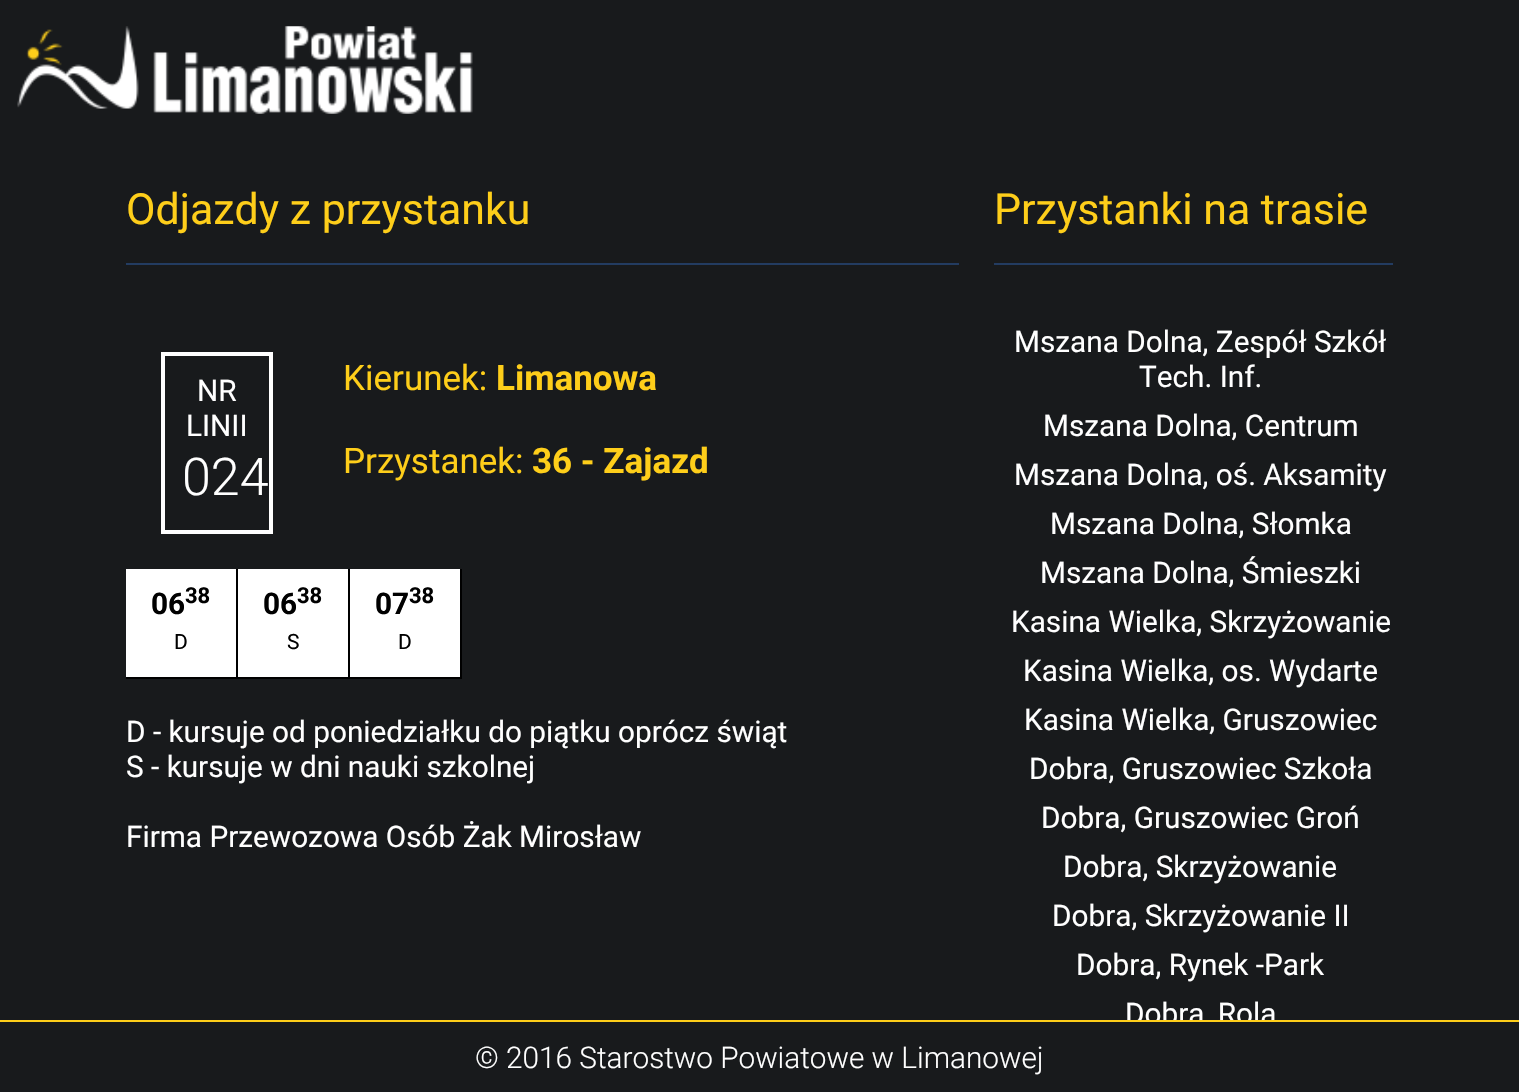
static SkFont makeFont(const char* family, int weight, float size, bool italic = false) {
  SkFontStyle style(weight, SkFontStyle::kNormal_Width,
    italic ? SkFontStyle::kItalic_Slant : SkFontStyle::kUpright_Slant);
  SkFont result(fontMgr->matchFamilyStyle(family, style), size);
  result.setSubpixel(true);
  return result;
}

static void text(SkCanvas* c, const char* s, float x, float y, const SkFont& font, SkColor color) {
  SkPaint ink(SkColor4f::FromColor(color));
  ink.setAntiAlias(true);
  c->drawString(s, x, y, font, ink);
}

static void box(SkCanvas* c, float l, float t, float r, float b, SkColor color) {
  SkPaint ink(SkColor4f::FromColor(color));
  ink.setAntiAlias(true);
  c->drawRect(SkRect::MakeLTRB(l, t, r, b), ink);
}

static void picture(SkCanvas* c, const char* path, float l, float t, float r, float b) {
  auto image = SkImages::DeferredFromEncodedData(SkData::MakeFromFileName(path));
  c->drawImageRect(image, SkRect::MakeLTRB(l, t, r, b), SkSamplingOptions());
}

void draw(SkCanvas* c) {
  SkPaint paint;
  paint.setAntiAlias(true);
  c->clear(0xff181a1c);
  picture(c, "img_01.png", 17, 26, 473, 114);
  box(c, 126, 263, 959, 265, 0xff233c61);
  SkFont face1 = makeFont("Roboto", 400, 42.9f);
  text(c, "Odjazdy z przystanku", 126, 224, face1, 0xfffece1a);
  paint.setStyle(SkPaint::kStroke_Style);
  paint.setStrokeWidth(4);
  paint.setColor(0xffffffff);
  c->drawRect(SkRect::MakeLTRB(163, 354, 271, 532), paint);
  SkFont face2 = makeFont("Roboto", 400, 29.75f);
  text(c, "NR", 197, 401, face2, 0xffffffff);
  text(c, "LINII", 186, 436, face2, 0xffffffff);
  SkFont face3 = makeFont("Roboto", 300, 52);
  text(c, "024", 182, 495, face3, 0xffffffff);
  SkFont face4 = makeFont("Roboto", 400, 35);
  text(c, "Kierunek:", 343, 390, face4, 0xfffece1a);
  SkFont face5 = makeFont("Roboto", 700, 35);
  text(c, "Limanowa", 496, 390, face5, 0xfffece1a);
  text(c, "Przystanek:", 343, 473, face4, 0xfffece1a);
  text(c, "36 - Zajazd", 532, 473, face5, 0xfffece1a);
  box(c, 126, 569, 236, 677, 0xffffffff);
  box(c, 236, 569, 238, 679, 0xff000000);
  box(c, 126, 677, 238, 679, 0xff000000);
  SkFont face6 = makeFont("Roboto", 700, 29.75f);
  text(c, "06", 151, 614, face6, 0xff000000);
  SkFont face7 = makeFont("Roboto", 700, 22);
  text(c, "38", 185, 603, face7, 0xff000000);
  SkFont face8 = makeFont("Roboto", 400, 21);
  text(c, "D", 174, 649, face8, 0xff000000);
  box(c, 238, 569, 348, 677, 0xffffffff);
  box(c, 348, 569, 350, 679, 0xff000000);
  box(c, 238, 677, 350, 679, 0xff000000);
  text(c, "06", 263, 614, face6, 0xff000000);
  text(c, "38", 297, 603, face7, 0xff000000);
  text(c, "S", 287, 649, face8, 0xff000000);
  box(c, 350, 569, 460, 677, 0xffffffff);
  box(c, 460, 569, 462, 679, 0xff000000);
  box(c, 350, 677, 462, 679, 0xff000000);
  text(c, "07", 375, 614, face6, 0xff000000);
  text(c, "38", 409, 603, face7, 0xff000000);
  text(c, "D", 398, 649, face8, 0xff000000);
  text(c, "D - kursuje od poniedziałku do piątku oprócz świąt", 126, 742, face2, 0xffffffff);
  text(c, "S - kursuje w dni nauki szkolnej", 126, 777, face2, 0xffffffff);
  text(c, "Firma Przewozowa Osób Żak Mirosław", 126, 847, face2, 0xffffffff);
  box(c, 994, 263, 1393, 265, 0xff233c61);
  text(c, "Przystanki na trasie", 994, 224, face1, 0xfffece1a);
  text(c, "Mszana Dolna, Zespół Szkół", 1014, 352, face2, 0xffffffff);
  text(c, "Tech. Inf.", 1139, 387, face2, 0xffffffff);
  text(c, "Mszana Dolna, Centrum", 1043, 436, face2, 0xffffffff);
  text(c, "Mszana Dolna, oś. Aksamity", 1014, 485, face2, 0xffffffff);
  text(c, "Mszana Dolna, Słomka", 1050, 534, face2, 0xffffffff);
  text(c, "Mszana Dolna, Śmieszki", 1040, 583, face2, 0xffffffff);
  text(c, "Kasina Wielka, Skrzyżowanie", 1011, 632, face2, 0xffffffff);
  text(c, "Kasina Wielka, os. Wydarte", 1023, 681, face2, 0xffffffff);
  text(c, "Kasina Wielka, Gruszowiec", 1024, 730, face2, 0xffffffff);
  text(c, "Dobra, Gruszowiec Szkoła", 1029, 779, face2, 0xffffffff);
  text(c, "Dobra, Gruszowiec Groń", 1041, 828, face2, 0xffffffff);
  text(c, "Dobra, Skrzyżowanie", 1063, 877, face2, 0xffffffff);
  text(c, "Dobra, Skrzyżowanie II", 1052, 926, face2, 0xffffffff);
  text(c, "Dobra, Rynek -Park", 1076, 975, face2, 0xffffffff);
  text(c, "Dobra, Rola", 1125, 1024, face2, 0xffffffff);
  box(c, 1127, 1022, 1275, 1029, 0xff181a1c);
  box(c, 0, 1020, 1519, 1022, 0xfffece1a);
  SkFont face9 = makeFont("Roboto", 300, 29.75f);
  text(c, "© 2016 Starostwo Powiatowe w Limanowej", 475, 1068, face9, 0xffffffff);
}
